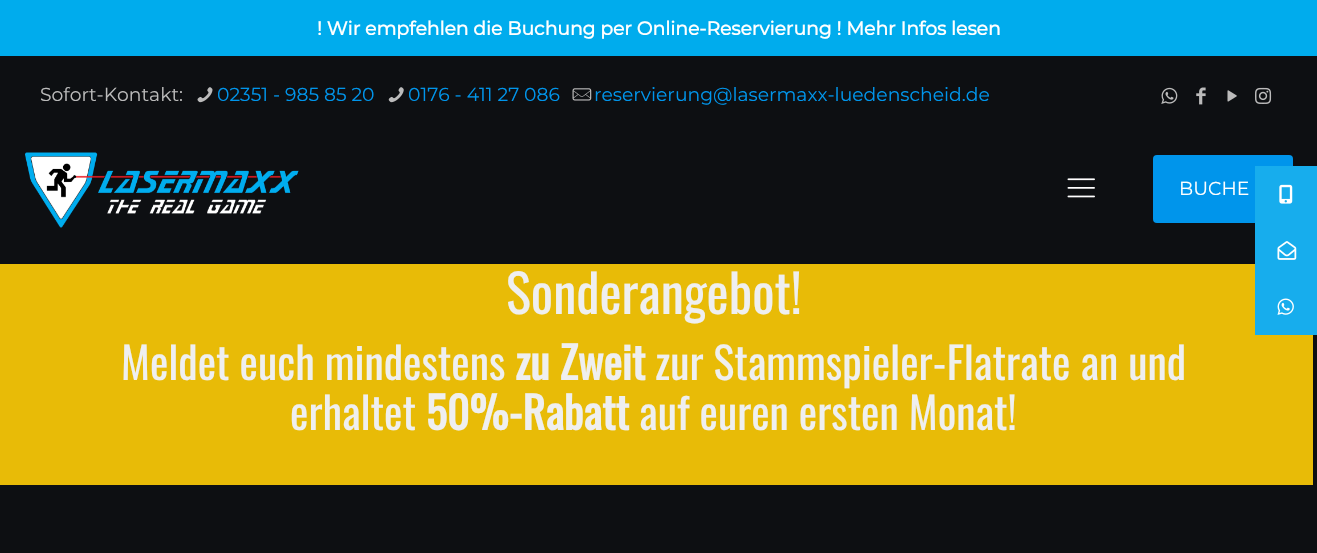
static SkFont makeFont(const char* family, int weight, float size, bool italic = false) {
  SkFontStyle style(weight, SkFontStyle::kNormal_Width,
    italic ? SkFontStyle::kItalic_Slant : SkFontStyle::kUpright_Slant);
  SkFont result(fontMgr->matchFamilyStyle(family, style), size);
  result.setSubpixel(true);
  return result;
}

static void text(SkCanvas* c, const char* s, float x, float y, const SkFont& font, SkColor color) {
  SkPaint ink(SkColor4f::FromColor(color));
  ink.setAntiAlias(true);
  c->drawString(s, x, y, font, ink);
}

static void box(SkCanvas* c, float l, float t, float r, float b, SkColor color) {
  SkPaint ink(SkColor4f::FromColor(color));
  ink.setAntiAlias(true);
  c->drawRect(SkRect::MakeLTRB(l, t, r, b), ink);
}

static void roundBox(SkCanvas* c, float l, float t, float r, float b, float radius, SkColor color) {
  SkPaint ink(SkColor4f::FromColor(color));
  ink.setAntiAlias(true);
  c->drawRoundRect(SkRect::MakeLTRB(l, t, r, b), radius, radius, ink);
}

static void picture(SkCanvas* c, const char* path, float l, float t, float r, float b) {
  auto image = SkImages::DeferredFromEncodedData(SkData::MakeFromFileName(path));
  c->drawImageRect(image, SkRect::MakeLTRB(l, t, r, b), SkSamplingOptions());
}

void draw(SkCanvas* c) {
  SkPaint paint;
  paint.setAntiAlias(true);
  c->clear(0xff0d0f12);
  box(c, 0, 0, 1317, 56, 0xff00aced);
  SkFont face1 = makeFont("Montserrat", 700, 18.75f);
  text(c, "! Wir empfehlen die Buchung per Online-Reservierung ! Mehr Infos lesen", 317, 35, face1, 0xffffffff);
  SkFont face2 = makeFont("Montserrat", 400, 18.75f);
  text(c, "Sofort-Kontakt:", 40, 101, face2, 0xffbbbbbb);
  picture(c, "img_01.png", 197, 87, 213, 103);
  text(c, "02351 - 985 85 20", 217, 101, face2, 0xff0095eb);
  picture(c, "img_02.png", 388, 87, 404, 103);
  text(c, "0176 - 411 27 086", 408, 101, face2, 0xff0095eb);
  picture(c, "img_03.png", 572, 88, 592, 101);
  text(c, "reservierung@lasermaxx-luedenscheid.de", 594, 101, face2, 0xff0095eb);
  picture(c, "img_04.png", 1161, 87, 1178, 104);
  picture(c, "img_05.png", 1196, 87, 1206, 105);
  picture(c, "img_06.png", 1227, 90, 1237, 102);
  picture(c, "img_07.png", 1255, 87, 1272, 104);
  picture(c, "img_08.png", 25, 152, 299, 228);
  picture(c, "img_09.png", 1067, 178, 1095, 198);
  roundBox(c, 1153, 155, 1293, 223, 4, 0xff0095eb);
  text(c, "BUCHE", 1179, 195, face2, 0xffffffff);
  box(c, 0, 264, 1313, 485, 0xffe8bb07);
  SkFont face3 = makeFont("Oswald", 400, 52.5f);
  text(c, "Sonderangebot!", 506, 314, face3, 0xffefefef);
  SkFont face4 = makeFont("Oswald", 400, 43.75f);
  text(c, "Meldet euch mindestens", 121, 380, face4, 0xffefefef);
  SkFont face5 = makeFont("Oswald", 700, 43.75f);
  text(c, "zu Zweit", 515, 380, face5, 0xffefefef);
  text(c, "zur Stammspieler-Flatrate an und", 655, 380, face4, 0xffefefef);
  text(c, "erhaltet", 290, 430, face4, 0xffefefef);
  text(c, "50%-Rabatt", 426, 430, face5, 0xffefefef);
  text(c, "auf euren ersten Monat!", 639, 430, face4, 0xffefefef);
  box(c, 1255, 166, 1317, 335, 0xff17aded);
  picture(c, "img_10.png", 1279, 184, 1293, 204);
  picture(c, "img_11.png", 1277, 241, 1297, 260);
  picture(c, "img_12.png", 1277, 298, 1294, 315);
}
